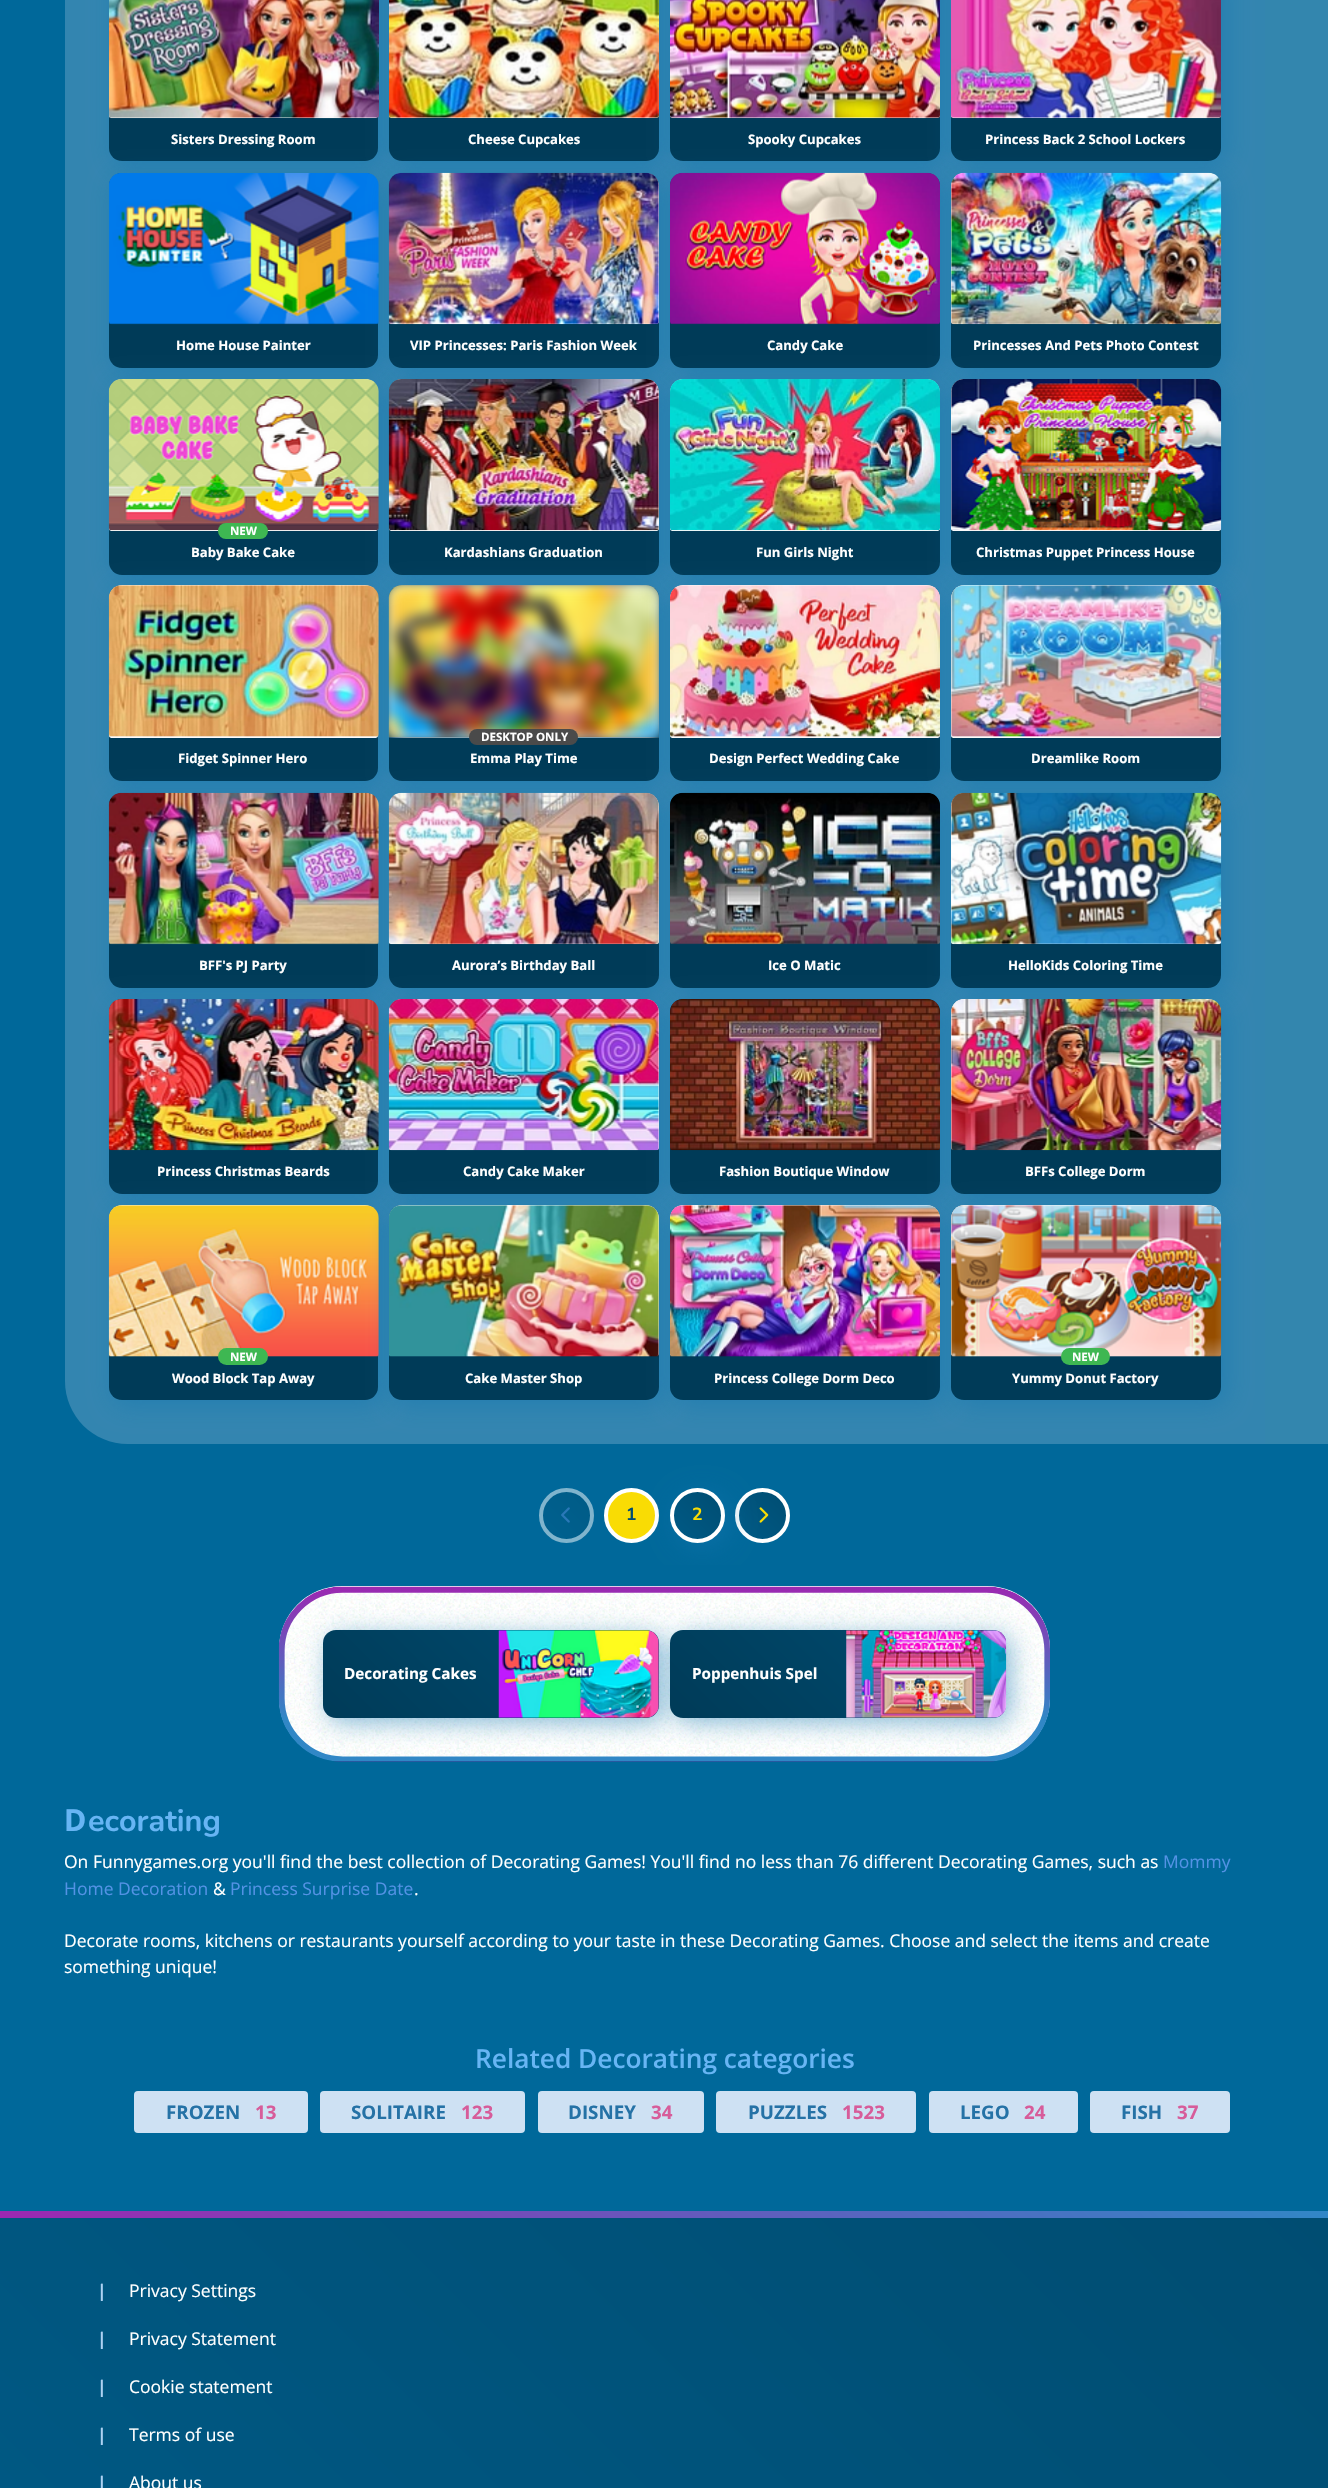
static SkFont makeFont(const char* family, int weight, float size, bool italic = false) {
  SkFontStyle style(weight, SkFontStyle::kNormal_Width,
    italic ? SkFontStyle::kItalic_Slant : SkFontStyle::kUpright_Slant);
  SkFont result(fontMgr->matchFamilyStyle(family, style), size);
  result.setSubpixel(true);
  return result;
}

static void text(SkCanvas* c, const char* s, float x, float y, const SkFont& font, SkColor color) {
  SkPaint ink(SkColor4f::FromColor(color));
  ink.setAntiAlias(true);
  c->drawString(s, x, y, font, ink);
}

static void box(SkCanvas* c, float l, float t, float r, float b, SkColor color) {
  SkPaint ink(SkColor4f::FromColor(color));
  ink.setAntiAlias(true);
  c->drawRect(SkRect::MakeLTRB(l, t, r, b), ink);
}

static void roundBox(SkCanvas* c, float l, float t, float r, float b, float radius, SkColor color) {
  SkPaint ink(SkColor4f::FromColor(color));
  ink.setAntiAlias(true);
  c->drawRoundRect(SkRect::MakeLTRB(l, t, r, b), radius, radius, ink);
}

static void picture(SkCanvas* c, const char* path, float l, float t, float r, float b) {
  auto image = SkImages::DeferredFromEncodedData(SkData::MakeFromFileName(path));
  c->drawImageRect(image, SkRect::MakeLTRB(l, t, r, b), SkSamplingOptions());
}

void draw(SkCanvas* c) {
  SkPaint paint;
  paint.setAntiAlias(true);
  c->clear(0xff00689a);
  paint.setColor(0xff3385b0);
  c->drawPath(SkPathBuilder().moveTo(128, -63).lineTo(1265, -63).lineTo(1265, 1444).lineTo(128, 1444).cubicTo(93, 1444, 65, 1416, 65, 1381).lineTo(65, 0).cubicTo(65, -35, 93, -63, 128, -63).close().detach(), paint);
  paint.setColor(0x801276af);
  paint.setMaskFilter(SkMaskFilter::MakeBlur(kNormal_SkBlurStyle, 12.5f));
  c->drawRoundRect(SkRect::MakeLTRB(114, -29, 383, 166), 13, 13, paint);
  paint.setMaskFilter(nullptr);
  roundBox(c, 109, -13, 378, 161, 13, 0xff003b58);
  paint.setColor(0xfffafafa);
  c->drawPath(SkPathBuilder().moveTo(122, -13).lineTo(365, -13).cubicTo(372, -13, 378, -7, 378, 0).lineTo(378, 115.5f).cubicTo(378, 117, 377, 118, 375.5f, 118).lineTo(111.5f, 118).cubicTo(110, 118, 109, 117, 109, 115.5f).lineTo(109, 0).cubicTo(109, -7, 115, -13, 122, -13).close().detach(), paint);
  picture(c, "img_01.png", 109, 0, 379, 119);
  SkFont face1 = makeFont("Open Sans", 700, 13.1f);
  text(c, "Sisters Dressing Room", 171, 144, face1, 0xffffffff);
  paint.setColor(0x801276af);
  paint.setMaskFilter(SkMaskFilter::MakeBlur(kNormal_SkBlurStyle, 12.5f));
  c->drawRoundRect(SkRect::MakeLTRB(394, -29, 664, 166), 13, 13, paint);
  paint.setMaskFilter(nullptr);
  roundBox(c, 389, -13, 659, 161, 13, 0xff003b58);
  paint.setColor(0xfffafafa);
  c->drawPath(SkPathBuilder().moveTo(402, -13).lineTo(646, -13).cubicTo(653, -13, 659, -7, 659, 0).lineTo(659, 115.5f).cubicTo(659, 117, 658, 118, 656.5f, 118).lineTo(391.5f, 118).cubicTo(390, 118, 389, 117, 389, 115.5f).lineTo(389, 0).cubicTo(389, -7, 395, -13, 402, -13).close().detach(), paint);
  picture(c, "img_02.png", 389, 0, 659, 119);
  text(c, "Cheese Cupcakes", 468, 144, face1, 0xffffffff);
  paint.setColor(0x801276af);
  paint.setMaskFilter(SkMaskFilter::MakeBlur(kNormal_SkBlurStyle, 12.5f));
  c->drawRoundRect(SkRect::MakeLTRB(675, -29, 945, 166), 13, 13, paint);
  paint.setMaskFilter(nullptr);
  roundBox(c, 670, -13, 940, 161, 13, 0xff003b58);
  paint.setColor(0xfffafafa);
  c->drawPath(SkPathBuilder().moveTo(683, -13).lineTo(927, -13).cubicTo(934, -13, 940, -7, 940, 0).lineTo(940, 115.5f).cubicTo(940, 117, 939, 118, 937.5f, 118).lineTo(672.5f, 118).cubicTo(671, 118, 670, 117, 670, 115.5f).lineTo(670, 0).cubicTo(670, -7, 676, -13, 683, -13).close().detach(), paint);
  picture(c, "img_03.png", 670, 0, 940, 119);
  text(c, "Spooky Cupcakes", 748, 144, face1, 0xffffffff);
  paint.setColor(0x801276af);
  paint.setMaskFilter(SkMaskFilter::MakeBlur(kNormal_SkBlurStyle, 12.5f));
  c->drawRoundRect(SkRect::MakeLTRB(956, -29, 1226, 166), 13, 13, paint);
  paint.setMaskFilter(nullptr);
  roundBox(c, 951, -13, 1221, 161, 13, 0xff003b58);
  paint.setColor(0xfffafafa);
  c->drawPath(SkPathBuilder().moveTo(964, -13).lineTo(1208, -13).cubicTo(1215, -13, 1221, -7, 1221, 0).lineTo(1221, 115.5f).cubicTo(1221, 117, 1220, 118, 1218.5f, 118).lineTo(953.5f, 118).cubicTo(952, 118, 951, 117, 951, 115.5f).lineTo(951, 0).cubicTo(951, -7, 957, -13, 964, -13).close().detach(), paint);
  picture(c, "img_04.png", 951, 0, 1221, 119);
  text(c, "Princess Back 2 School Lockers", 985, 144, face1, 0xffffffff);
  paint.setColor(0x801276af);
  paint.setMaskFilter(SkMaskFilter::MakeBlur(kNormal_SkBlurStyle, 12.5f));
  c->drawRoundRect(SkRect::MakeLTRB(114, 178, 383, 373), 13, 13, paint);
  paint.setMaskFilter(nullptr);
  roundBox(c, 109, 173, 378, 368, 13, 0xff003b58);
  picture(c, "img_05.png", 108, 173, 379, 325);
  text(c, "Home House Painter", 176, 350, face1, 0xffffffff);
  paint.setMaskFilter(SkMaskFilter::MakeBlur(kNormal_SkBlurStyle, 12.5f));
  c->drawRoundRect(SkRect::MakeLTRB(394, 178, 664, 373), 13, 13, paint);
  paint.setMaskFilter(nullptr);
  roundBox(c, 389, 173, 659, 368, 13, 0xff003b58);
  paint.setColor(0xfffafafa);
  c->drawPath(SkPathBuilder().moveTo(402, 173).lineTo(646, 173).cubicTo(653, 173, 659, 179, 659, 186).lineTo(659, 321.5f).cubicTo(659, 323, 658, 324, 656.5f, 324).lineTo(391.5f, 324).cubicTo(390, 324, 389, 323, 389, 321.5f).lineTo(389, 186).cubicTo(389, 179, 395, 173, 402, 173).close().detach(), paint);
  picture(c, "img_06.png", 388, 172, 659, 325);
  text(c, "VIP Princesses: Paris Fashion Week", 410, 350, face1, 0xffffffff);
  paint.setColor(0x801276af);
  paint.setMaskFilter(SkMaskFilter::MakeBlur(kNormal_SkBlurStyle, 12.5f));
  c->drawRoundRect(SkRect::MakeLTRB(675, 178, 945, 373), 13, 13, paint);
  paint.setMaskFilter(nullptr);
  roundBox(c, 670, 173, 940, 368, 13, 0xff003b58);
  picture(c, "img_07.png", 670, 172, 940, 325);
  text(c, "Candy Cake", 767, 350, face1, 0xffffffff);
  paint.setMaskFilter(SkMaskFilter::MakeBlur(kNormal_SkBlurStyle, 12.5f));
  c->drawRoundRect(SkRect::MakeLTRB(956, 178, 1226, 373), 13, 13, paint);
  paint.setMaskFilter(nullptr);
  roundBox(c, 951, 173, 1221, 368, 13, 0xff003b58);
  paint.setColor(0xfffafafa);
  c->drawPath(SkPathBuilder().moveTo(964, 173).lineTo(1208, 173).cubicTo(1215, 173, 1221, 179, 1221, 186).lineTo(1221, 321.5f).cubicTo(1221, 323, 1220, 324, 1218.5f, 324).lineTo(953.5f, 324).cubicTo(952, 324, 951, 323, 951, 321.5f).lineTo(951, 186).cubicTo(951, 179, 957, 173, 964, 173).close().detach(), paint);
  picture(c, "img_08.png", 951, 172, 1222, 325);
  text(c, "Princesses And Pets Photo Contest", 973, 350, face1, 0xffffffff);
  paint.setColor(0x801276af);
  paint.setMaskFilter(SkMaskFilter::MakeBlur(kNormal_SkBlurStyle, 12.5f));
  c->drawRoundRect(SkRect::MakeLTRB(114, 384, 383, 580), 13, 13, paint);
  paint.setMaskFilter(nullptr);
  roundBox(c, 109, 379, 378, 575, 13, 0xff003b58);
  paint.setColor(0xfffafafa);
  c->drawPath(SkPathBuilder().moveTo(122, 379).lineTo(365, 379).cubicTo(372, 379, 378, 385, 378, 392).lineTo(378, 528.5f).cubicTo(378, 530, 377, 531, 375.5f, 531).lineTo(111.5f, 531).cubicTo(110, 531, 109, 530, 109, 528.5f).lineTo(109, 392).cubicTo(109, 385, 115, 379, 122, 379).close().detach(), paint);
  picture(c, "img_09.png", 108, 379, 379, 531);
  roundBox(c, 218, 523, 268, 539, 8, 0xff3eb752);
  SkFont face2 = makeFont("Open Sans", 700, 11.5f);
  text(c, "NEW", 230, 535, face2, 0xffffffff);
  text(c, "Baby Bake Cake", 191, 557, face1, 0xffffffff);
  paint.setColor(0x801276af);
  paint.setMaskFilter(SkMaskFilter::MakeBlur(kNormal_SkBlurStyle, 12.5f));
  c->drawRoundRect(SkRect::MakeLTRB(394, 384, 664, 580), 13, 13, paint);
  paint.setMaskFilter(nullptr);
  roundBox(c, 389, 379, 659, 575, 13, 0xff003b58);
  paint.setColor(0xfffafafa);
  c->drawPath(SkPathBuilder().moveTo(402, 379).lineTo(646, 379).cubicTo(653, 379, 659, 385, 659, 392).lineTo(659, 528.5f).cubicTo(659, 530, 658, 531, 656.5f, 531).lineTo(391.5f, 531).cubicTo(390, 531, 389, 530, 389, 528.5f).lineTo(389, 392).cubicTo(389, 385, 395, 379, 402, 379).close().detach(), paint);
  picture(c, "img_10.png", 388, 379, 659, 531);
  text(c, "Kardashians Graduation", 444, 557, face1, 0xffffffff);
  paint.setColor(0x801276af);
  paint.setMaskFilter(SkMaskFilter::MakeBlur(kNormal_SkBlurStyle, 12.5f));
  c->drawRoundRect(SkRect::MakeLTRB(675, 384, 945, 580), 13, 13, paint);
  paint.setMaskFilter(nullptr);
  roundBox(c, 670, 379, 940, 575, 13, 0xff003b58);
  paint.setColor(0xfffafafa);
  c->drawPath(SkPathBuilder().moveTo(683, 379).lineTo(927, 379).cubicTo(934, 379, 940, 385, 940, 392).lineTo(940, 528.5f).cubicTo(940, 530, 939, 531, 937.5f, 531).lineTo(672.5f, 531).cubicTo(671, 531, 670, 530, 670, 528.5f).lineTo(670, 392).cubicTo(670, 385, 676, 379, 683, 379).close().detach(), paint);
  picture(c, "img_11.png", 670, 379, 940, 531);
  text(c, "Fun Girls Night", 756, 557, face1, 0xffffffff);
  paint.setColor(0x801276af);
  paint.setMaskFilter(SkMaskFilter::MakeBlur(kNormal_SkBlurStyle, 12.5f));
  c->drawRoundRect(SkRect::MakeLTRB(956, 384, 1226, 580), 13, 13, paint);
  paint.setMaskFilter(nullptr);
  roundBox(c, 951, 379, 1221, 575, 13, 0xff003b58);
  paint.setColor(0xfffafafa);
  c->drawPath(SkPathBuilder().moveTo(964, 379).lineTo(1208, 379).cubicTo(1215, 379, 1221, 385, 1221, 392).lineTo(1221, 528.5f).cubicTo(1221, 530, 1220, 531, 1218.5f, 531).lineTo(953.5f, 531).cubicTo(952, 531, 951, 530, 951, 528.5f).lineTo(951, 392).cubicTo(951, 385, 957, 379, 964, 379).close().detach(), paint);
  picture(c, "img_12.png", 951, 379, 1222, 531);
  text(c, "Christmas Puppet Princess House", 976, 557, face1, 0xffffffff);
  paint.setColor(0x801276af);
  paint.setMaskFilter(SkMaskFilter::MakeBlur(kNormal_SkBlurStyle, 12.5f));
  c->drawRoundRect(SkRect::MakeLTRB(114, 590, 383, 786), 13, 13, paint);
  paint.setMaskFilter(nullptr);
  roundBox(c, 109, 585, 378, 781, 13, 0xff003b58);
  paint.setColor(0xfffafafa);
  c->drawPath(SkPathBuilder().moveTo(122, 585).lineTo(365, 585).cubicTo(372, 585, 378, 591, 378, 598).lineTo(378, 735.5f).cubicTo(378, 737, 377, 738, 375.5f, 738).lineTo(111.5f, 738).cubicTo(110, 738, 109, 737, 109, 735.5f).lineTo(109, 598).cubicTo(109, 591, 115, 585, 122, 585).close().detach(), paint);
  picture(c, "img_13.png", 108, 585, 379, 737);
  text(c, "Fidget Spinner Hero", 178, 763, face1, 0xffffffff);
  paint.setColor(0x801276af);
  paint.setMaskFilter(SkMaskFilter::MakeBlur(kNormal_SkBlurStyle, 12.5f));
  c->drawRoundRect(SkRect::MakeLTRB(394, 590, 664, 786), 13, 13, paint);
  paint.setMaskFilter(nullptr);
  roundBox(c, 389, 585, 659, 781, 13, 0xff003b58);
  c->save();
  c->clipRect(SkRect::MakeLTRB(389, 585, 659, 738));
  c->clipPath(SkPathBuilder().moveTo(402, 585).lineTo(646, 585).cubicTo(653, 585, 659, 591, 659, 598).lineTo(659, 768).cubicTo(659, 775, 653, 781, 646, 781).lineTo(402, 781).cubicTo(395, 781, 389, 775, 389, 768).lineTo(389, 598).cubicTo(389, 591, 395, 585, 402, 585).close().detach(), true);
  paint.setColor(0xfffafafa);
  paint.setMaskFilter(SkMaskFilter::MakeBlur(kNormal_SkBlurStyle, 6));
  c->drawRoundRect(SkRect::MakeLTRB(389, 585, 659, 738), 11, 11, paint);
  paint.setMaskFilter(nullptr);
  c->restore();
  picture(c, "img_14.png", 388, 585, 659, 737);
  roundBox(c, 469, 729, 578, 745, 8, 0xff4a4a4a);
  text(c, "DESKTOP ONLY", 481, 741, face2, 0xffffffff);
  text(c, "Emma Play Time", 470, 763, face1, 0xffffffff);
  paint.setColor(0x801276af);
  paint.setMaskFilter(SkMaskFilter::MakeBlur(kNormal_SkBlurStyle, 12.5f));
  c->drawRoundRect(SkRect::MakeLTRB(675, 590, 945, 786), 13, 13, paint);
  paint.setMaskFilter(nullptr);
  roundBox(c, 670, 585, 940, 781, 13, 0xff003b58);
  paint.setColor(0xfffafafa);
  c->drawPath(SkPathBuilder().moveTo(683, 585).lineTo(927, 585).cubicTo(934, 585, 940, 591, 940, 598).lineTo(940, 735.5f).cubicTo(940, 737, 939, 738, 937.5f, 738).lineTo(672.5f, 738).cubicTo(671, 738, 670, 737, 670, 735.5f).lineTo(670, 598).cubicTo(670, 591, 676, 585, 683, 585).close().detach(), paint);
  picture(c, "img_15.png", 670, 585, 940, 737);
  text(c, "Design Perfect Wedding Cake", 709, 763, face1, 0xffffffff);
  paint.setColor(0x801276af);
  paint.setMaskFilter(SkMaskFilter::MakeBlur(kNormal_SkBlurStyle, 12.5f));
  c->drawRoundRect(SkRect::MakeLTRB(956, 590, 1226, 786), 13, 13, paint);
  paint.setMaskFilter(nullptr);
  roundBox(c, 951, 585, 1221, 781, 13, 0xff003b58);
  paint.setColor(0xfffafafa);
  c->drawPath(SkPathBuilder().moveTo(964, 585).lineTo(1208, 585).cubicTo(1215, 585, 1221, 591, 1221, 598).lineTo(1221, 735.5f).cubicTo(1221, 737, 1220, 738, 1218.5f, 738).lineTo(953.5f, 738).cubicTo(952, 738, 951, 737, 951, 735.5f).lineTo(951, 598).cubicTo(951, 591, 957, 585, 964, 585).close().detach(), paint);
  picture(c, "img_16.png", 951, 585, 1222, 737);
  text(c, "Dreamlike Room", 1031, 763, face1, 0xffffffff);
  paint.setColor(0x801276af);
  paint.setMaskFilter(SkMaskFilter::MakeBlur(kNormal_SkBlurStyle, 12.5f));
  c->drawRoundRect(SkRect::MakeLTRB(114, 798, 383, 993), 13, 13, paint);
  paint.setMaskFilter(nullptr);
  roundBox(c, 109, 793, 378, 988, 13, 0xff003b58);
  picture(c, "img_17.png", 108, 792, 379, 945);
  text(c, "BFF's PJ Party", 199, 970, face1, 0xffffffff);
  paint.setMaskFilter(SkMaskFilter::MakeBlur(kNormal_SkBlurStyle, 12.5f));
  c->drawRoundRect(SkRect::MakeLTRB(394, 798, 664, 993), 13, 13, paint);
  paint.setMaskFilter(nullptr);
  roundBox(c, 389, 793, 659, 988, 13, 0xff003b58);
  paint.setColor(0xfffafafa);
  c->drawPath(SkPathBuilder().moveTo(402, 793).lineTo(646, 793).cubicTo(653, 793, 659, 799, 659, 806).lineTo(659, 941.5f).cubicTo(659, 943, 658, 944, 656.5f, 944).lineTo(391.5f, 944).cubicTo(390, 944, 389, 943, 389, 941.5f).lineTo(389, 806).cubicTo(389, 799, 395, 793, 402, 793).close().detach(), paint);
  picture(c, "img_18.png", 388, 792, 659, 945);
  text(c, "Aurora’s Birthday Ball", 452, 970, face1, 0xffffffff);
  paint.setColor(0x801276af);
  paint.setMaskFilter(SkMaskFilter::MakeBlur(kNormal_SkBlurStyle, 12.5f));
  c->drawRoundRect(SkRect::MakeLTRB(675, 798, 945, 993), 13, 13, paint);
  paint.setMaskFilter(nullptr);
  roundBox(c, 670, 793, 940, 988, 13, 0xff003b58);
  picture(c, "img_19.png", 670, 792, 940, 945);
  text(c, "Ice O Matic", 768, 970, face1, 0xffffffff);
  paint.setMaskFilter(SkMaskFilter::MakeBlur(kNormal_SkBlurStyle, 12.5f));
  c->drawRoundRect(SkRect::MakeLTRB(956, 798, 1226, 993), 13, 13, paint);
  paint.setMaskFilter(nullptr);
  roundBox(c, 951, 793, 1221, 988, 13, 0xff003b58);
  paint.setColor(0xfffafafa);
  c->drawPath(SkPathBuilder().moveTo(964, 793).lineTo(1208, 793).cubicTo(1215, 793, 1221, 799, 1221, 806).lineTo(1221, 941.5f).cubicTo(1221, 943, 1220, 944, 1218.5f, 944).lineTo(953.5f, 944).cubicTo(952, 944, 951, 943, 951, 941.5f).lineTo(951, 806).cubicTo(951, 799, 957, 793, 964, 793).close().detach(), paint);
  picture(c, "img_20.png", 951, 792, 1222, 945);
  text(c, "HelloKids Coloring Time", 1008, 970, face1, 0xffffffff);
  paint.setColor(0x801276af);
  paint.setMaskFilter(SkMaskFilter::MakeBlur(kNormal_SkBlurStyle, 12.5f));
  c->drawRoundRect(SkRect::MakeLTRB(114, 1004, 383, 1199), 13, 13, paint);
  paint.setMaskFilter(nullptr);
  roundBox(c, 109, 999, 378, 1194, 13, 0xff003b58);
  picture(c, "img_21.png", 108, 999, 379, 1151);
  text(c, "Princess Christmas Beards", 157, 1176, face1, 0xffffffff);
  paint.setMaskFilter(SkMaskFilter::MakeBlur(kNormal_SkBlurStyle, 12.5f));
  c->drawRoundRect(SkRect::MakeLTRB(394, 1004, 664, 1199), 13, 13, paint);
  paint.setMaskFilter(nullptr);
  roundBox(c, 389, 999, 659, 1194, 13, 0xff003b58);
  paint.setColor(0xfffafafa);
  c->drawPath(SkPathBuilder().moveTo(402, 999).lineTo(646, 999).cubicTo(653, 999, 659, 1005, 659, 1012).lineTo(659, 1147.5f).cubicTo(659, 1149, 658, 1150, 656.5f, 1150).lineTo(391.5f, 1150).cubicTo(390, 1150, 389, 1149, 389, 1147.5f).lineTo(389, 1012).cubicTo(389, 1005, 395, 999, 402, 999).close().detach(), paint);
  picture(c, "img_22.png", 388, 999, 659, 1151);
  text(c, "Candy Cake Maker", 463, 1176, face1, 0xffffffff);
  paint.setColor(0x801276af);
  paint.setMaskFilter(SkMaskFilter::MakeBlur(kNormal_SkBlurStyle, 12.5f));
  c->drawRoundRect(SkRect::MakeLTRB(675, 1004, 945, 1199), 13, 13, paint);
  paint.setMaskFilter(nullptr);
  roundBox(c, 670, 999, 940, 1194, 13, 0xff003b58);
  picture(c, "img_23.png", 670, 999, 940, 1151);
  text(c, "Fashion Boutique Window", 719, 1176, face1, 0xffffffff);
  paint.setMaskFilter(SkMaskFilter::MakeBlur(kNormal_SkBlurStyle, 12.5f));
  c->drawRoundRect(SkRect::MakeLTRB(956, 1004, 1226, 1199), 13, 13, paint);
  paint.setMaskFilter(nullptr);
  roundBox(c, 951, 999, 1221, 1194, 13, 0xff003b58);
  paint.setColor(0xfffafafa);
  c->drawPath(SkPathBuilder().moveTo(964, 999).lineTo(1208, 999).cubicTo(1215, 999, 1221, 1005, 1221, 1012).lineTo(1221, 1147.5f).cubicTo(1221, 1149, 1220, 1150, 1218.5f, 1150).lineTo(953.5f, 1150).cubicTo(952, 1150, 951, 1149, 951, 1147.5f).lineTo(951, 1012).cubicTo(951, 1005, 957, 999, 964, 999).close().detach(), paint);
  picture(c, "img_24.png", 951, 999, 1222, 1151);
  text(c, "BFFs College Dorm", 1025, 1176, face1, 0xffffffff);
  paint.setColor(0x801276af);
  paint.setMaskFilter(SkMaskFilter::MakeBlur(kNormal_SkBlurStyle, 12.5f));
  c->drawRoundRect(SkRect::MakeLTRB(114, 1210, 383, 1405), 13, 13, paint);
  paint.setMaskFilter(nullptr);
  roundBox(c, 109, 1205, 378, 1400, 13, 0xff003b58);
  paint.setColor(0xfffafafa);
  c->drawPath(SkPathBuilder().moveTo(122, 1205).lineTo(365, 1205).cubicTo(372, 1205, 378, 1211, 378, 1218).lineTo(378, 1353.5f).cubicTo(378, 1355, 377, 1356, 375.5f, 1356).lineTo(111.5f, 1356).cubicTo(110, 1356, 109, 1355, 109, 1353.5f).lineTo(109, 1218).cubicTo(109, 1211, 115, 1205, 122, 1205).close().detach(), paint);
  picture(c, "img_25.png", 108, 1205, 379, 1357);
  roundBox(c, 218, 1348, 268, 1365, 8.5f, 0xff3eb752);
  text(c, "NEW", 230, 1361, face2, 0xffffffff);
  text(c, "Wood Block Tap Away", 172, 1383, face1, 0xffffffff);
  paint.setColor(0x801276af);
  paint.setMaskFilter(SkMaskFilter::MakeBlur(kNormal_SkBlurStyle, 12.5f));
  c->drawRoundRect(SkRect::MakeLTRB(394, 1210, 664, 1405), 13, 13, paint);
  paint.setMaskFilter(nullptr);
  roundBox(c, 389, 1205, 659, 1400, 13, 0xff003b58);
  paint.setColor(0xfffafafa);
  c->drawPath(SkPathBuilder().moveTo(402, 1205).lineTo(646, 1205).cubicTo(653, 1205, 659, 1211, 659, 1218).lineTo(659, 1353.5f).cubicTo(659, 1355, 658, 1356, 656.5f, 1356).lineTo(391.5f, 1356).cubicTo(390, 1356, 389, 1355, 389, 1353.5f).lineTo(389, 1218).cubicTo(389, 1211, 395, 1205, 402, 1205).close().detach(), paint);
  picture(c, "img_26.png", 389, 1205, 659, 1357);
  text(c, "Cake Master Shop", 465, 1383, face1, 0xffffffff);
  paint.setColor(0x801276af);
  paint.setMaskFilter(SkMaskFilter::MakeBlur(kNormal_SkBlurStyle, 12.5f));
  c->drawRoundRect(SkRect::MakeLTRB(675, 1210, 945, 1405), 13, 13, paint);
  paint.setMaskFilter(nullptr);
  roundBox(c, 670, 1205, 940, 1400, 13, 0xff003b58);
  paint.setColor(0xfffafafa);
  c->drawPath(SkPathBuilder().moveTo(683, 1205).lineTo(927, 1205).cubicTo(934, 1205, 940, 1211, 940, 1218).lineTo(940, 1353.5f).cubicTo(940, 1355, 939, 1356, 937.5f, 1356).lineTo(672.5f, 1356).cubicTo(671, 1356, 670, 1355, 670, 1353.5f).lineTo(670, 1218).cubicTo(670, 1211, 676, 1205, 683, 1205).close().detach(), paint);
  picture(c, "img_27.png", 670, 1205, 940, 1357);
  text(c, "Princess College Dorm Deco", 714, 1383, face1, 0xffffffff);
  paint.setColor(0x801276af);
  paint.setMaskFilter(SkMaskFilter::MakeBlur(kNormal_SkBlurStyle, 12.5f));
  c->drawRoundRect(SkRect::MakeLTRB(956, 1210, 1226, 1405), 13, 13, paint);
  paint.setMaskFilter(nullptr);
  roundBox(c, 951, 1205, 1221, 1400, 13, 0xff003b58);
  paint.setColor(0xfffafafa);
  c->drawPath(SkPathBuilder().moveTo(964, 1205).lineTo(1208, 1205).cubicTo(1215, 1205, 1221, 1211, 1221, 1218).lineTo(1221, 1353.5f).cubicTo(1221, 1355, 1220, 1356, 1218.5f, 1356).lineTo(953.5f, 1356).cubicTo(952, 1356, 951, 1355, 951, 1353.5f).lineTo(951, 1218).cubicTo(951, 1211, 957, 1205, 964, 1205).close().detach(), paint);
  picture(c, "img_28.png", 951, 1205, 1222, 1357);
  roundBox(c, 1061, 1348, 1110, 1365, 8.5f, 0xff3eb752);
  text(c, "NEW", 1072, 1361, face2, 0xffffffff);
  text(c, "Yummy Donut Factory", 1012, 1383, face1, 0xffffffff);
  box(c, 1265, 0, 1328, 1444, 0xff3386ae);
  c->save();
  c->clipPath(SkPathBuilder().moveTo(566.5f, 1488).cubicTo(581.5f, 1488, 594, 1500.5f, 594, 1515.5f).cubicTo(594, 1530.5f, 581.5f, 1543, 566.5f, 1543).cubicTo(551.5f, 1543, 539, 1530.5f, 539, 1515.5f).cubicTo(539, 1500.5f, 551.5f, 1488, 566.5f, 1488).close().detach(), true);
  {
    const SkColor colors[] = {0xff006190, 0xff005b86};
    const float stops[] = {0, 1};
    const SkPoint ends[] = {{543, 1539}, {590, 1491}};
    paint.setShader(SkGradientShader::MakeLinear(ends, colors, stops, 2, SkTileMode::kClamp));
    paint.setAlpha(255);
  }
  c->drawRect(SkRect::MakeLTRB(543, 1491, 590, 1539), paint);
  c->restore();
  paint.setStyle(SkPaint::kStroke_Style);
  paint.setStrokeWidth(4);
  paint.setShader(nullptr);
  paint.setColor(0xff80b4cd);
  c->drawCircle(566.5f, 1515.5f, 25.5f, paint);
  picture(c, "img_29.png", 561, 1507, 570, 1523);
  paint.setStyle(SkPaint::kFill_Style);
  paint.setColor(0xfff9dc04);
  c->drawCircle(631.5f, 1515.5f, 25.5f, paint);
  paint.setStyle(SkPaint::kStroke_Style);
  paint.setColor(0xffffffff);
  c->drawCircle(631.5f, 1515.5f, 25.5f, paint);
  SkFont face3 = makeFont("Nunito", 700, 17.5f);
  text(c, "1", 626, 1520, face3, 0xff004d72);
  c->save();
  c->clipPath(SkPathBuilder().moveTo(762.5f, 1488).cubicTo(777.5f, 1488, 790, 1500.5f, 790, 1515.5f).cubicTo(790, 1530.5f, 777.5f, 1543, 762.5f, 1543).cubicTo(747.5f, 1543, 735, 1530.5f, 735, 1515.5f).cubicTo(735, 1500.5f, 747.5f, 1488, 762.5f, 1488).close().detach(), true);
  paint.setStyle(SkPaint::kFill_Style);
  {
    const SkColor colors[] = {0xff005a86, 0xff004d72};
    const float stops[] = {0, 1};
    const SkPoint ends[] = {{739, 1539}, {786, 1491}};
    paint.setShader(SkGradientShader::MakeLinear(ends, colors, stops, 2, SkTileMode::kClamp));
    paint.setAlpha(255);
  }
  c->drawRect(SkRect::MakeLTRB(739, 1491, 786, 1539), paint);
  c->restore();
  paint.setStyle(SkPaint::kStroke_Style);
  paint.setShader(nullptr);
  paint.setColor(0xffffffff);
  c->drawCircle(762.5f, 1515.5f, 25.5f, paint);
  picture(c, "img_30.png", 759, 1507, 769, 1523);
  roundBox(c, 279, 1586, 1050, 1761, 63, 0xffffffff);
  picture(c, "img_31.png", 278, 1586, 1050, 1762);
  c->save();
  c->clipRect(SkRect::MakeLTRB(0, 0, 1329, 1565));
  paint.setStyle(SkPaint::kFill_Style);
  paint.setColor(0x801276af);
  paint.setMaskFilter(SkMaskFilter::MakeBlur(kNormal_SkBlurStyle, 12.5f));
  c->drawRoundRect(SkRect::MakeLTRB(675, 1493, 730, 1548), 27.5f, 27.5f, paint);
  paint.setMaskFilter(nullptr);
  c->restore();
  c->save();
  c->clipPath(SkPathBuilder().moveTo(697.5f, 1488).cubicTo(712.5f, 1488, 725, 1500.5f, 725, 1515.5f).cubicTo(725, 1530.5f, 712.5f, 1543, 697.5f, 1543).cubicTo(682.5f, 1543, 670, 1530.5f, 670, 1515.5f).cubicTo(670, 1500.5f, 682.5f, 1488, 697.5f, 1488).close().detach(), true);
  {
    const SkColor colors[] = {0xff005a86, 0xff004d72};
    const float stops[] = {0, 1};
    const SkPoint ends[] = {{674, 1539}, {721, 1491}};
    paint.setShader(SkGradientShader::MakeLinear(ends, colors, stops, 2, SkTileMode::kClamp));
    paint.setAlpha(255);
  }
  c->drawRect(SkRect::MakeLTRB(674, 1491, 721, 1539), paint);
  c->restore();
  paint.setStyle(SkPaint::kStroke_Style);
  paint.setShader(nullptr);
  paint.setColor(0xffffffff);
  c->drawCircle(697.5f, 1515.5f, 25.5f, paint);
  text(c, "2", 692, 1520, face3, 0xfff9dc04);
  paint.setStyle(SkPaint::kFill_Style);
  paint.setColor(0x801276af);
  paint.setMaskFilter(SkMaskFilter::MakeBlur(kNormal_SkBlurStyle, 12.5f));
  c->drawRoundRect(SkRect::MakeLTRB(328, 1635, 664, 1723), 13, 13, paint);
  paint.setMaskFilter(nullptr);
  {
    const SkColor colors[] = {0xff003b58, 0xff004d72};
    const float stops[] = {0, 1};
    const SkPoint ends[] = {{385, 1780}, {597, 1568}};
    paint.setShader(SkGradientShader::MakeLinear(ends, colors, stops, 2, SkTileMode::kClamp));
    paint.setAlpha(255);
  }
  c->drawRoundRect(SkRect::MakeLTRB(323, 1630, 659, 1718), 13, 13, paint);
  SkFont face4 = makeFont("Open Sans", 700, 15.25f);
  text(c, "Decorating Cakes", 344, 1679, face4, 0xffffffff);
  picture(c, "img_32.png", 498, 1630, 659, 1718);
  paint.setShader(nullptr);
  paint.setColor(0x801276af);
  paint.setMaskFilter(SkMaskFilter::MakeBlur(kNormal_SkBlurStyle, 12.5f));
  c->drawRoundRect(SkRect::MakeLTRB(675, 1635, 1011, 1723), 13, 13, paint);
  paint.setMaskFilter(nullptr);
  {
    const SkColor colors[] = {0xff003b58, 0xff004d72};
    const float stops[] = {0, 1};
    const SkPoint ends[] = {{732, 1780}, {944, 1568}};
    paint.setShader(SkGradientShader::MakeLinear(ends, colors, stops, 2, SkTileMode::kClamp));
    paint.setAlpha(255);
  }
  c->drawRoundRect(SkRect::MakeLTRB(670, 1630, 1006, 1718), 13, 13, paint);
  text(c, "Poppenhuis Spel", 692, 1679, face4, 0xffffffff);
  picture(c, "img_33.png", 846, 1630, 1007, 1718);
  SkFont face5 = makeFont("Noto Sans", 700, 30.5f);
  text(c, "D", 64, 1831, face5, 0xff67b5f4);
  SkFont face6 = makeFont("Nunito", 700, 30.5f);
  text(c, "ecorating", 88, 1831, face6, 0xff67b5f4);
  SkFont face7 = makeFont("Open Sans", 400, 17.5f);
  text(c, "On Funnygames.org you'll find the best collection of Decorating Games! You'll find no less than 76 different Decorating Games, such as", 64, 1868, face7, 0xffffffff);
  text(c, "Mommy", 1163, 1868, face7, 0xff5392e5);
  text(c, "Home Decoration", 64, 1895, face7, 0xff5392e5);
  text(c, "&", 213, 1895, face7, 0xffffffff);
  text(c, "Princess Surprise Date", 230, 1895, face7, 0xff5392e5);
  text(c, ".", 414, 1895, face7, 0xffffffff);
  text(c, "Decorate rooms, kitchens or restaurants yourself according to your taste in these Decorating Games. Choose and select the items and create", 64, 1947, face7, 0xffffffff);
  text(c, "something unique!", 64, 1973, face7, 0xffffffff);
  SkFont face8 = makeFont("Open Sans", 600, 26.25f);
  text(c, "Related Decorating categories", 475, 2068, face8, 0xff67b5f4);
  roundBox(c, 134, 2091, 308, 2133, 4, 0xffcee1f3);
  SkFont face9 = makeFont("Open Sans", 700, 18.75f);
  text(c, "FROZEN", 166, 2119, face9, 0xff2572a6);
  text(c, "13", 255, 2119, face9, 0xffd75c9a);
  roundBox(c, 320, 2091, 525, 2133, 4, 0xffcee1f3);
  text(c, "SOLITAIRE", 351, 2119, face9, 0xff2572a6);
  text(c, "123", 461, 2119, face9, 0xffd75c9a);
  roundBox(c, 538, 2091, 704, 2133, 4, 0xffcee1f3);
  text(c, "DISNEY", 568, 2119, face9, 0xff2572a6);
  text(c, "34", 651, 2119, face9, 0xffd75c9a);
  roundBox(c, 716, 2091, 916, 2133, 4, 0xffcee1f3);
  text(c, "PUZZLES", 748, 2119, face9, 0xff2572a6);
  text(c, "1523", 842, 2119, face9, 0xffd75c9a);
  roundBox(c, 929, 2091, 1078, 2133, 4, 0xffcee1f3);
  text(c, "LEGO", 960, 2119, face9, 0xff2572a6);
  text(c, "24", 1024, 2119, face9, 0xffd75c9a);
  roundBox(c, 1090, 2091, 1230, 2133, 4, 0xffcee1f3);
  text(c, "FISH", 1121, 2119, face9, 0xff2572a6);
  text(c, "37", 1177, 2119, face9, 0xffd75c9a);
  {
    const SkColor colors[] = {0xff005a86, 0xff004d72};
    const float stops[] = {0, 1};
    const SkPoint ends[] = {{185, 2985}, {1144, 2026}};
    paint.setShader(SkGradientShader::MakeLinear(ends, colors, stops, 2, SkTileMode::kClamp));
    paint.setAlpha(255);
  }
  c->drawRect(SkRect::MakeLTRB(0, 2218, 1328, 2488), paint);
  {
    const SkColor colors[] = {0xff9c28b1, 0xff3187c6};
    const float stops[] = {0, 1};
    const SkPoint ends[] = {{331, 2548}, {998, 1881}};
    paint.setShader(SkGradientShader::MakeLinear(ends, colors, stops, 2, SkTileMode::kClamp));
    paint.setAlpha(255);
  }
  c->drawRect(SkRect::MakeLTRB(0, 2211, 1328, 2218), paint);
  SkFont face10 = makeFont("Open Sans", 700, 17.5f);
  text(c, "|", 97, 2297, face10, 0xffaed2f3);
  text(c, "Privacy Settings", 129, 2297, face7, 0xffffffff);
  text(c, "|", 97, 2345, face10, 0xffaed2f3);
  text(c, "Privacy Statement", 129, 2345, face7, 0xffffffff);
  text(c, "|", 97, 2393, face10, 0xffaed2f3);
  text(c, "Cookie statement", 129, 2393, face7, 0xffffffff);
  text(c, "|", 97, 2441, face10, 0xffaed2f3);
  text(c, "Terms of use", 129, 2441, face7, 0xffffffff);
  text(c, "|", 97, 2489, face10, 0xffaed2f3);
  text(c, "About us", 129, 2489, face7, 0xffffffff);
}
